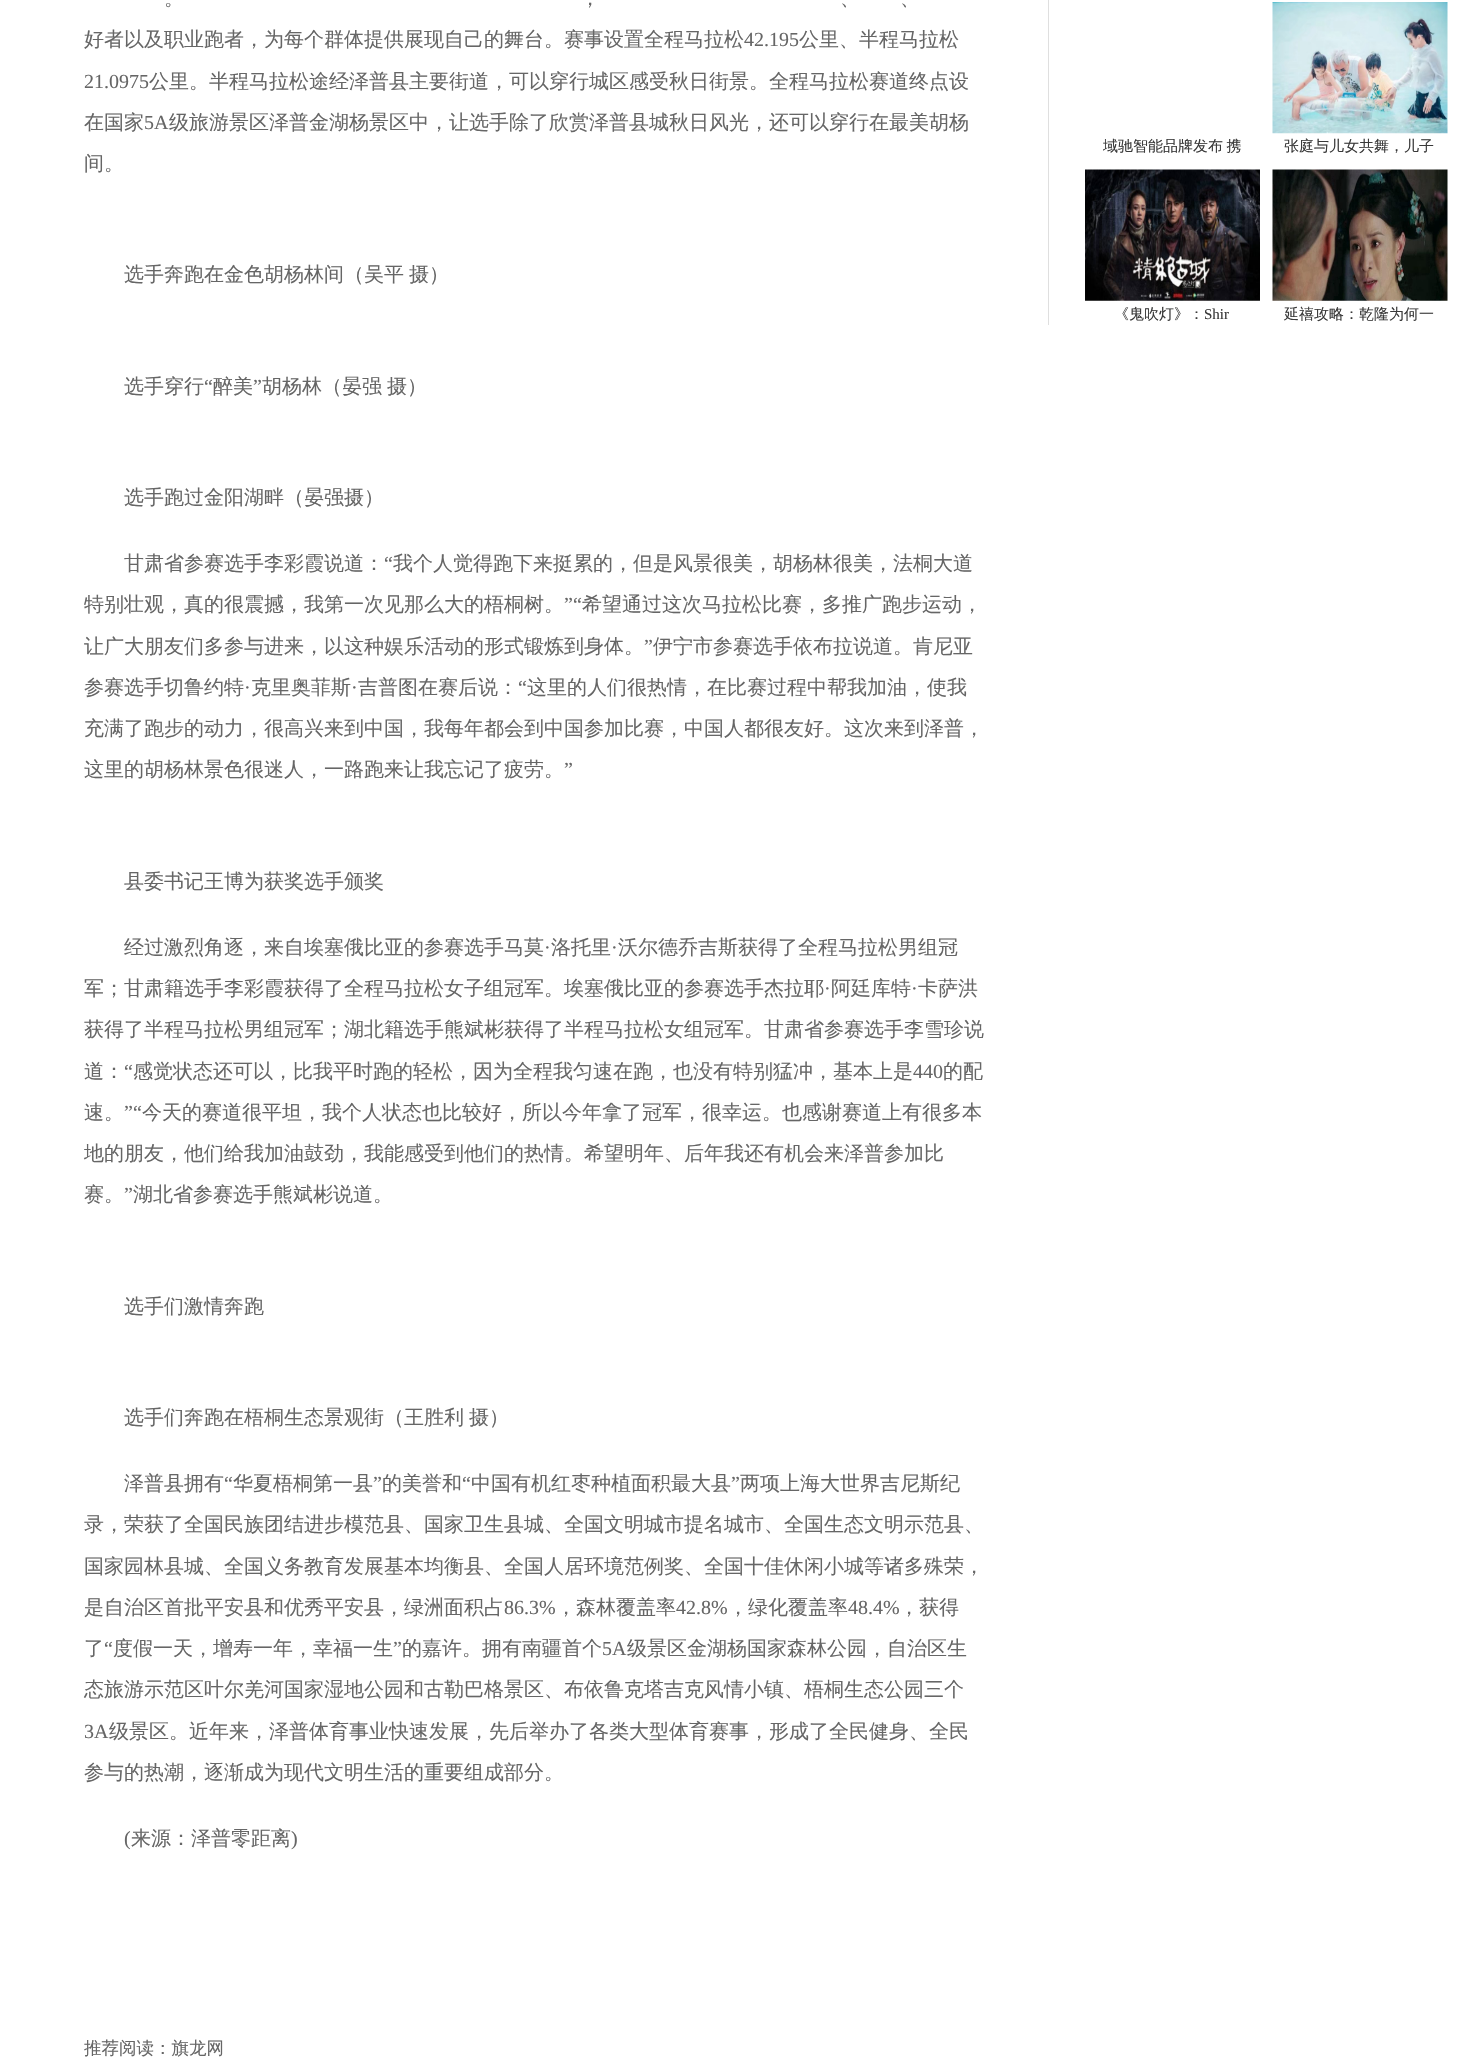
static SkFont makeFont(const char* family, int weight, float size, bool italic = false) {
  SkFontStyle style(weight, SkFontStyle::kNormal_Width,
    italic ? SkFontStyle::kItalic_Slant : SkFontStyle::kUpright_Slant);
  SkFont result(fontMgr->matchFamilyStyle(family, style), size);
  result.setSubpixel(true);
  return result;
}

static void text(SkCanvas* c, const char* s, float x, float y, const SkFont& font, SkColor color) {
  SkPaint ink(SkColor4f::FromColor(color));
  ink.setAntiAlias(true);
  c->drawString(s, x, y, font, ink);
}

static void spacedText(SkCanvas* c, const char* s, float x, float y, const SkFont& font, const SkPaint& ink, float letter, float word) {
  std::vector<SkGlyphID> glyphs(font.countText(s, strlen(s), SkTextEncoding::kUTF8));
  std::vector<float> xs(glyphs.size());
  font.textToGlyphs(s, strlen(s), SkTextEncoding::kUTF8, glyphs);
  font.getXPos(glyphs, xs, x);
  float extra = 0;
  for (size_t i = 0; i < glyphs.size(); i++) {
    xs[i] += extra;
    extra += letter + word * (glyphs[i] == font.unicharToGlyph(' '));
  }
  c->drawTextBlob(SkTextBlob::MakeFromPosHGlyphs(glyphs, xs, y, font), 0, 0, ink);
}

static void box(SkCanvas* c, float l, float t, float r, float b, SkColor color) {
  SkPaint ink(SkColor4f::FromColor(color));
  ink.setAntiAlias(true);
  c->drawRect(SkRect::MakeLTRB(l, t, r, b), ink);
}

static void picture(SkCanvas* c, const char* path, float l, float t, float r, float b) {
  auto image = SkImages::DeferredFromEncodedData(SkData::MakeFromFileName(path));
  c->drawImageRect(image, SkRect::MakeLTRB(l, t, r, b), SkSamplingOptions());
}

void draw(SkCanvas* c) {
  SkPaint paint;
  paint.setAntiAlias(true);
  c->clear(0xffffffff);
  SkFont face1 = makeFont("WenQuanYi Zen Hei", 500, 20);
  text(c, "。", 164, 5, face1, 0xff666666);
  text(c, "，", 580, 5, face1, 0xff666666);
  text(c, "、", 840, 5, face1, 0xff666666);
  text(c, "、", 900, 5, face1, 0xff666666);
  text(c, "好者以及职业跑者，为每个群体提供展现自己的舞台。赛事设置全程马拉松", 84, 46, face1, 0xff666666);
  SkFont face2 = makeFont("Liberation Serif", 400, 20);
  text(c, "42.195", 744, 46, face2, 0xff666666);
  text(c, "公里、半程马拉松", 799, 46, face1, 0xff666666);
  text(c, "21.0975", 84, 88, face2, 0xff666666);
  text(c, "公里。半程马拉松途经泽普县主要街道，可以穿行城区感受秋日街景。全程马拉松赛道终点设", 149, 88, face1, 0xff666666);
  text(c, "在国家", 84, 129, face1, 0xff666666);
  text(c, "5A", 144, 129, face2, 0xff666666);
  text(c, "级旅游景区泽普金湖杨景区中，让选手除了欣赏泽普县城秋日风光，还可以穿行在最美胡杨", 169, 129, face1, 0xff666666);
  text(c, "间。", 84, 170, face1, 0xff666666);
  paint.setColor(0xff666666);
  spacedText(c, "选手奔跑在金色胡杨林间（吴平 摄）", 124, 281, face1, paint, 0, -1);
  text(c, "选手穿行", 124, 393, face1, 0xff666666);
  text(c, "“", 204, 393, face2, 0xff666666);
  text(c, "醉美", 213, 393, face1, 0xff666666);
  text(c, "”", 253, 393, face2, 0xff666666);
  spacedText(c, "胡杨林（晏强 摄）", 262, 393, face1, paint, 0, -1);
  text(c, "选手跑过金阳湖畔（晏强摄）", 124, 504, face1, 0xff666666);
  text(c, "甘肃省参赛选手李彩霞说道：", 124, 570, face1, 0xff666666);
  text(c, "“", 384, 570, face2, 0xff666666);
  text(c, "我个人觉得跑下来挺累的，但是风景很美，胡杨林很美，法桐大道", 393, 570, face1, 0xff666666);
  text(c, "特别壮观，真的很震撼，我第一次见那么大的梧桐树。", 84, 611, face1, 0xff666666);
  text(c, "”“", 564, 611, face2, 0xff666666);
  text(c, "希望通过这次马拉松比赛，多推广跑步运动，", 582, 611, face1, 0xff666666);
  text(c, "让广大朋友们多参与进来，以这种娱乐活动的形式锻炼到身体。", 84, 653, face1, 0xff666666);
  text(c, "”", 644, 653, face2, 0xff666666);
  text(c, "伊宁市参赛选手依布拉说道。肯尼亚", 653, 653, face1, 0xff666666);
  text(c, "参赛选手切鲁约特", 84, 694, face1, 0xff666666);
  text(c, "克里奥菲斯", 251, 694, face1, 0xff666666);
  text(c, "吉普图在赛后说：", 358, 694, face1, 0xff666666);
  text(c, "“", 518, 694, face2, 0xff666666);
  text(c, "这里的人们很热情，在比赛过程中帮我加油，使我", 527, 694, face1, 0xff666666);
  text(c, "·", 244, 694, face2, 0xff666666);
  text(c, "·", 351, 694, face2, 0xff666666);
  text(c, "充满了跑步的动力，很高兴来到中国，我每年都会到中国参加比赛，中国人都很友好。这次来到泽普，", 84, 735, face1, 0xff666666);
  text(c, "这里的胡杨林景色很迷人，一路跑来让我忘记了疲劳。", 84, 776, face1, 0xff666666);
  text(c, "”", 564, 776, face2, 0xff666666);
  text(c, "县委书记王博为获奖选手颁奖", 124, 888, face1, 0xff666666);
  text(c, "经过激烈角逐，来自埃塞俄比亚的参赛选手马莫", 124, 954, face1, 0xff666666);
  text(c, "·", 544, 954, face2, 0xff666666);
  text(c, "洛托里", 551, 954, face1, 0xff666666);
  text(c, "·", 611, 954, face2, 0xff666666);
  text(c, "沃尔德乔吉斯获得了全程马拉松男组冠", 618, 954, face1, 0xff666666);
  text(c, "军；甘肃籍选手李彩霞获得了全程马拉松女子组冠军。埃塞俄比亚的参赛选手杰拉耶", 84, 995, face1, 0xff666666);
  text(c, "·", 824, 995, face2, 0xff666666);
  text(c, "阿廷库特", 831, 995, face1, 0xff666666);
  text(c, "·", 911, 995, face2, 0xff666666);
  text(c, "卡萨洪", 918, 995, face1, 0xff666666);
  text(c, "获得了半程马拉松男组冠军；湖北籍选手熊斌彬获得了半程马拉松女组冠军。甘肃省参赛选手李雪珍说", 84, 1036, face1, 0xff666666);
  text(c, "道：", 84, 1078, face1, 0xff666666);
  text(c, "“", 124, 1078, face2, 0xff666666);
  text(c, "感觉状态还可以，比我平时跑的轻松，因为全程我匀速在跑，也没有特别猛冲，基本上是", 133, 1078, face1, 0xff666666);
  text(c, "440", 913, 1078, face2, 0xff666666);
  text(c, "的配", 943, 1078, face1, 0xff666666);
  text(c, "速。", 84, 1119, face1, 0xff666666);
  text(c, "”“", 124, 1119, face2, 0xff666666);
  text(c, "今天的赛道很平坦，我个人状态也比较好，所以今年拿了冠军，很幸运。也感谢赛道上有很多本", 142, 1119, face1, 0xff666666);
  text(c, "地的朋友，他们给我加油鼓劲，我能感受到他们的热情。希望明年、后年我还有机会来泽普参加比", 84, 1160, face1, 0xff666666);
  text(c, "赛。", 84, 1201, face1, 0xff666666);
  text(c, "”", 124, 1201, face2, 0xff666666);
  text(c, "湖北省参赛选手熊斌彬说道。", 133, 1201, face1, 0xff666666);
  text(c, "选手们激情奔跑", 124, 1313, face1, 0xff666666);
  spacedText(c, "选手们奔跑在梧桐生态景观街（王胜利 摄）", 124, 1424, face1, paint, 0, -1);
  text(c, "泽普县拥有", 124, 1490, face1, 0xff666666);
  text(c, "“", 224, 1490, face2, 0xff666666);
  text(c, "华夏梧桐第一县", 233, 1490, face1, 0xff666666);
  text(c, "”", 373, 1490, face2, 0xff666666);
  text(c, "的美誉和", 382, 1490, face1, 0xff666666);
  text(c, "“", 462, 1490, face2, 0xff666666);
  text(c, "中国有机红枣种植面积最大县", 471, 1490, face1, 0xff666666);
  text(c, "”", 731, 1490, face2, 0xff666666);
  text(c, "两项上海大世界吉尼斯纪", 740, 1490, face1, 0xff666666);
  text(c, "录，荣获了全国民族团结进步模范县、国家卫生县城、全国文明城市提名城市、全国生态文明示范县、", 84, 1531, face1, 0xff666666);
  text(c, "国家园林县城、全国义务教育发展基本均衡县、全国人居环境范例奖、全国十佳休闲小城等诸多殊荣，", 84, 1573, face1, 0xff666666);
  text(c, "是自治区首批平安县和优秀平安县，绿洲面积占", 84, 1614, face1, 0xff666666);
  text(c, "86.3%", 504, 1614, face2, 0xff666666);
  text(c, "，森林覆盖率", 556, 1614, face1, 0xff666666);
  text(c, "42.8%", 676, 1614, face2, 0xff666666);
  text(c, "，绿化覆盖率", 728, 1614, face1, 0xff666666);
  text(c, "48.4%", 848, 1614, face2, 0xff666666);
  text(c, "，获得", 899, 1614, face1, 0xff666666);
  text(c, "了", 84, 1655, face1, 0xff666666);
  text(c, "“", 104, 1655, face2, 0xff666666);
  text(c, "度假一天，增寿一年，幸福一生", 113, 1655, face1, 0xff666666);
  text(c, "”", 393, 1655, face2, 0xff666666);
  text(c, "的嘉许。拥有南疆首个", 402, 1655, face1, 0xff666666);
  text(c, "5A", 602, 1655, face2, 0xff666666);
  text(c, "级景区金湖杨国家森林公园，自治区生", 627, 1655, face1, 0xff666666);
  text(c, "态旅游示范区叶尔羌河国家湿地公园和古勒巴格景区、布依鲁克塔吉克风情小镇、梧桐生态公园三个", 84, 1696, face1, 0xff666666);
  text(c, "3A", 84, 1738, face2, 0xff666666);
  text(c, "级景区。近年来，泽普体育事业快速发展，先后举办了各类大型体育赛事，形成了全民健身、全民", 109, 1738, face1, 0xff666666);
  text(c, "参与的热潮，逐渐成为现代文明生活的重要组成部分。", 84, 1779, face1, 0xff666666);
  text(c, "(", 124, 1845, face2, 0xff666666);
  text(c, "来源：泽普零距离", 131, 1845, face1, 0xff666666);
  text(c, ")", 291, 1845, face2, 0xff666666);
  SkFont face3 = makeFont("WenQuanYi Zen Hei", 500, 17.5f);
  text(c, "推荐阅读：旗龙网", 84, 2054, face3, 0xff666666);
  box(c, 1048, 0, 1049, 325, 0xffdfdfdf);
  SkFont face4 = makeFont("WenQuanYi Zen Hei", 500, 15);
  paint.setColor(0xff393939);
  spacedText(c, "域驰智能品牌发布 携", 1103, 151, face4, paint, 0, -1);
  picture(c, "img_01.png", 1272, 2, 1448, 134);
  text(c, "张庭与儿女共舞，儿子", 1284, 151, face4, 0xff393939);
  picture(c, "img_02.png", 1085, 169, 1260, 301);
  text(c, "《鬼吹灯》：", 1114, 319, face4, 0xff393939);
  SkFont face5 = makeFont("Liberation Serif", 400, 15);
  text(c, "Shir", 1204, 319, face5, 0xff393939);
  picture(c, "img_03.png", 1272, 169, 1448, 301);
  text(c, "延禧攻略：乾隆为何一", 1284, 319, face4, 0xff393939);
}
